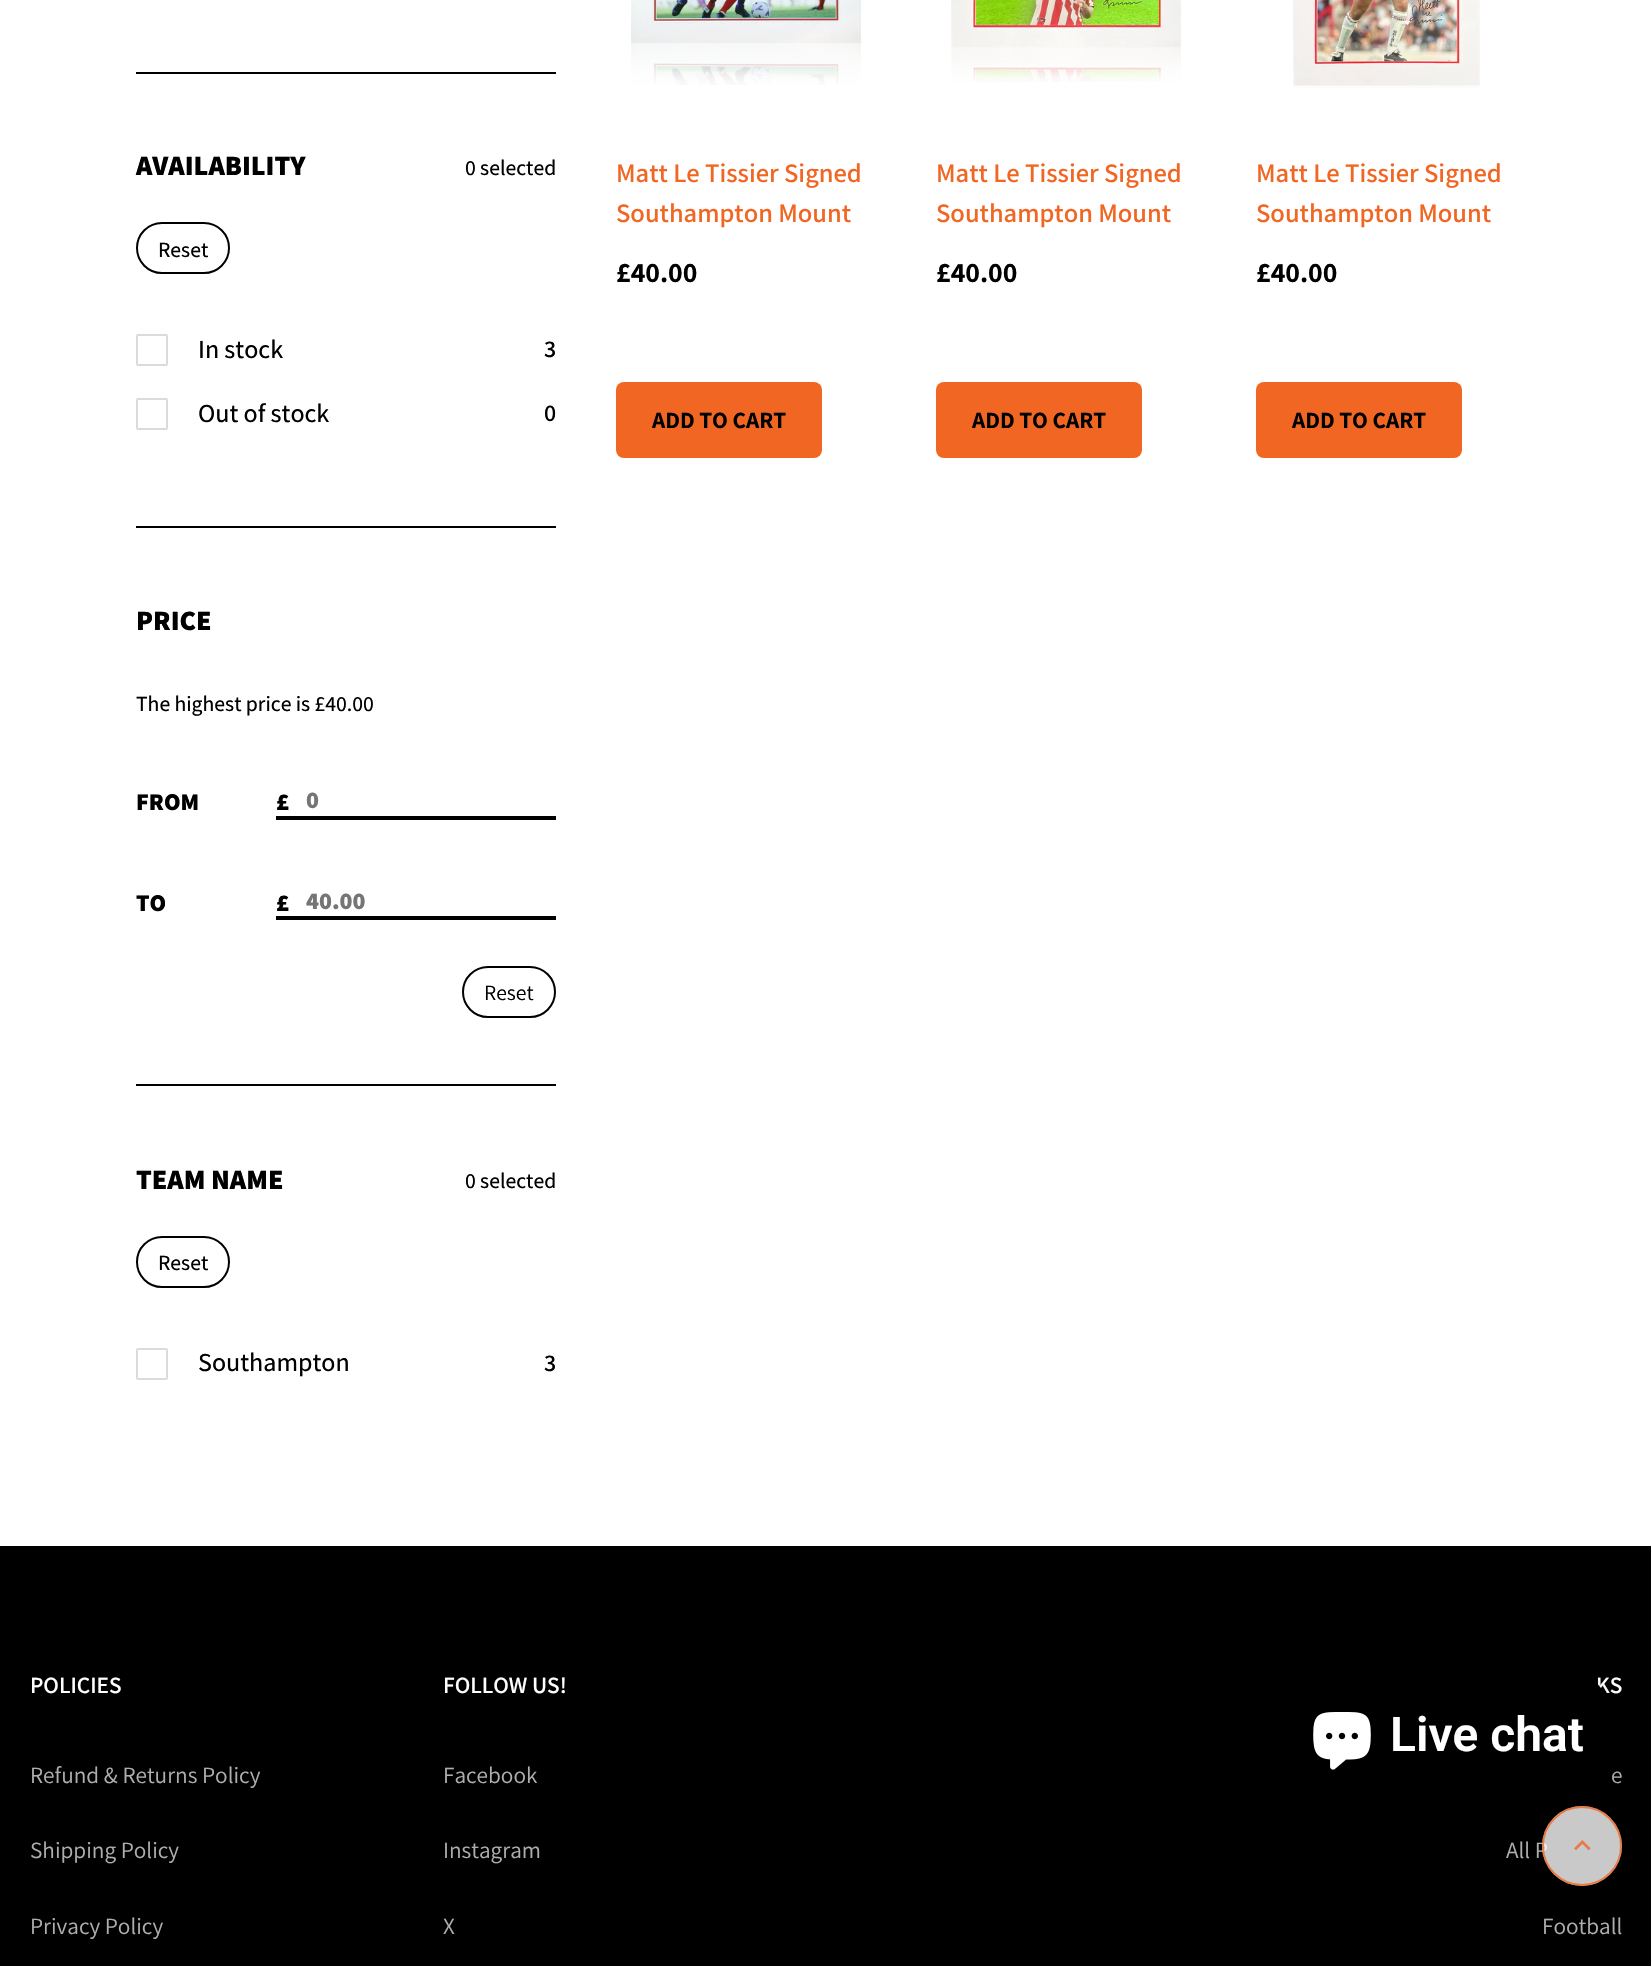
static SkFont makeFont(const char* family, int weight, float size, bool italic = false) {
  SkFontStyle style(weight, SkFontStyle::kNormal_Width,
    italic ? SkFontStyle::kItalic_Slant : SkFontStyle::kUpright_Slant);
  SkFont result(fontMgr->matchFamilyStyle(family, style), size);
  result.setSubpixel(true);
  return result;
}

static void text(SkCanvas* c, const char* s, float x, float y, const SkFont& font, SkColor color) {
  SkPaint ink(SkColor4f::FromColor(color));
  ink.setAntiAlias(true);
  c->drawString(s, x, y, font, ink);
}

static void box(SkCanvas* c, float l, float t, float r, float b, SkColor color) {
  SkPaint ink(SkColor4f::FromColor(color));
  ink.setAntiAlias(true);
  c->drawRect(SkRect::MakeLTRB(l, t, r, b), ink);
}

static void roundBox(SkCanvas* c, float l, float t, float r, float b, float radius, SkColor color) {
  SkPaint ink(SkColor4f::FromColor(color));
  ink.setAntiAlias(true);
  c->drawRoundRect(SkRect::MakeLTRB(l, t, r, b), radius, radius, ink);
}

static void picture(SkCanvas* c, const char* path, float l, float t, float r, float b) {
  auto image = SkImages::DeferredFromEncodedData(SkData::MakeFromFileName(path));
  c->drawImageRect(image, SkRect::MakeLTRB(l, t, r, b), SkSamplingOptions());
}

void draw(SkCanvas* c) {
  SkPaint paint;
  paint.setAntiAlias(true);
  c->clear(0xffffffff);
  box(c, 136, 72, 556, 74, 0xff000000);
  box(c, 136, 526, 556, 528, 0xff000000);
  SkFont face1 = makeFont("Assistant", 800, 28);
  text(c, "AVAILABILITY", 136, 175, face1, 0xff000000);
  SkFont face2 = makeFont("Assistant", 500, 21.6f);
  text(c, "0 selected", 465, 175, face2, 0xff000000);
  paint.setStyle(SkPaint::kStroke_Style);
  paint.setStrokeWidth(2);
  paint.setColor(0xff000000);
  c->drawRoundRect(SkRect::MakeLTRB(137, 223, 229, 273), 25, 25, paint);
  text(c, "Reset", 158, 257, face2, 0xff000000);
  paint.setColor(0xffdbdbdb);
  c->drawRoundRect(SkRect::MakeLTRB(137, 335, 167, 365), 1, 1, paint);
  SkFont face3 = makeFont("Assistant", 500, 26);
  text(c, "In stock", 198, 358, face3, 0xff000000);
  SkFont face4 = makeFont("Assistant", 600, 24);
  text(c, "3", 544, 357, face4, 0xff000000);
  c->drawRoundRect(SkRect::MakeLTRB(137, 399, 167, 429), 1, 1, paint);
  text(c, "Out of stock", 198, 422, face3, 0xff000000);
  text(c, "0", 544, 421, face4, 0xff000000);
  box(c, 136, 1084, 556, 1086, 0xff000000);
  text(c, "PRICE", 136, 630, face1, 0xff000000);
  text(c, "The highest price is £40.00", 136, 711, face2, 0xff000000);
  SkFont face5 = makeFont("Assistant", 800, 24);
  text(c, "FROM", 136, 810, face5, 0xff000000);
  text(c, "£", 276, 810, face5, 0xff000000);
  box(c, 276, 816, 556, 820, 0xff000000);
  text(c, "0", 306, 808, face5, 0xff757575);
  text(c, "TO", 136, 911, face5, 0xff000000);
  text(c, "£", 276, 911, face5, 0xff000000);
  box(c, 276, 916, 556, 920, 0xff000000);
  text(c, "40.00", 306, 909, face5, 0xff757575);
  paint.setColor(0xff000000);
  c->drawRoundRect(SkRect::MakeLTRB(463, 967, 555, 1017), 25, 25, paint);
  SkFont face6 = makeFont("Assistant", 400, 21.6f);
  text(c, "Reset", 484, 1000, face6, 0xff000000);
  text(c, "TEAM NAME", 136, 1189, face1, 0xff000000);
  text(c, "0 selected", 465, 1188, face2, 0xff000000);
  c->drawRoundRect(SkRect::MakeLTRB(137, 1237, 229, 1287), 25, 25, paint);
  text(c, "Reset", 158, 1270, face2, 0xff000000);
  paint.setColor(0xffdbdbdb);
  c->drawRoundRect(SkRect::MakeLTRB(137, 1349, 167, 1379), 1, 1, paint);
  text(c, "Southampton", 198, 1371, face3, 0xff000000);
  text(c, "3", 544, 1371, face4, 0xff000000);
  picture(c, "img_01.png", 631, 0, 861, 85);
  SkFont face7 = makeFont("Assistant", 600, 26.6f);
  text(c, "Matt Le Tissier Signed", 616, 182, face7, 0xfff16623);
  text(c, "Southampton Mount", 616, 222, face7, 0xfff16623);
  SkFont face8 = makeFont("Assistant", 700, 28);
  text(c, "£40.00", 616, 282, face8, 0xff000000);
  roundBox(c, 616, 382, 822, 458, 8, 0xfff16623);
  SkFont face9 = makeFont("Assistant", 700, 23.25f);
  text(c, "ADD TO CART", 652, 428, face9, 0xff000000);
  picture(c, "img_02.png", 951, 0, 1181, 82);
  text(c, "Matt Le Tissier Signed", 936, 182, face7, 0xfff16623);
  text(c, "Southampton Mount", 936, 222, face7, 0xfff16623);
  text(c, "£40.00", 936, 282, face8, 0xff000000);
  roundBox(c, 936, 382, 1142, 458, 8, 0xfff16623);
  text(c, "ADD TO CART", 972, 428, face9, 0xff000000);
  picture(c, "img_03.png", 1293, 0, 1480, 88);
  text(c, "Matt Le Tissier Signed", 1256, 182, face7, 0xfff16623);
  text(c, "Southampton Mount", 1256, 222, face7, 0xfff16623);
  text(c, "£40.00", 1256, 282, face8, 0xff000000);
  roundBox(c, 1256, 382, 1462, 458, 8, 0xfff16623);
  text(c, "ADD TO CART", 1292, 428, face9, 0xff000000);
  box(c, 0, 1546, 1651, 1966, 0xff000000);
  SkFont face10 = makeFont("Assistant", 600, 23.25f);
  text(c, "POLICIES", 30, 1693, face10, 0xffffffff);
  SkFont face11 = makeFont("Assistant", 400, 23.25f);
  text(c, "Refund & Returns Policy", 30, 1783, face11, 0xffaeaeae);
  text(c, "Shipping Policy", 30, 1858, face11, 0xffaeaeae);
  text(c, "Privacy Policy", 30, 1934, face11, 0xffaeaeae);
  text(c, "FOLLOW US!", 443, 1693, face10, 0xffffffff);
  text(c, "Facebook", 443, 1783, face11, 0xffaeaeae);
  text(c, "Instagram", 443, 1858, face11, 0xffaeaeae);
  text(c, "X", 443, 1934, face11, 0xffaeaeae);
  text(c, "KS", 1596, 1693, face10, 0xffffffff);
  text(c, "e", 1611, 1783, face11, 0xffaeaeae);
  text(c, "All P", 1506, 1858, face11, 0xffaeaeae);
  text(c, "Football", 1542, 1934, face11, 0xffaeaeae);
  paint.setStyle(SkPaint::kFill_Style);
  paint.setColor(0xc9ffffff);
  c->drawCircle(1582, 1846, 40, paint);
  paint.setStyle(SkPaint::kStroke_Style);
  paint.setColor(0xc9f16623);
  c->drawCircle(1582, 1846, 39, paint);
  paint.setStyle(SkPaint::kFill_Style);
  paint.setColor(0x26000000);
  paint.setMaskFilter(SkMaskFilter::MakeBlur(kNormal_SkBlurStyle, 5));
  c->drawRoundRect(SkRect::MakeLTRB(1288, 1676, 1608, 1796), 32, 32, paint);
  paint.setMaskFilter(nullptr);
  roundBox(c, 1288, 1676, 1608, 1796, 32, 0xff000000);
  picture(c, "img_04.png", 1313, 1712, 1371, 1770);
  SkFont face12 = makeFont("Roboto", 600, 48);
  text(c, "Live chat", 1390, 1751, face12, 0xffffffff);
  picture(c, "img_05.png", 1574, 1840, 1591, 1851);
}
